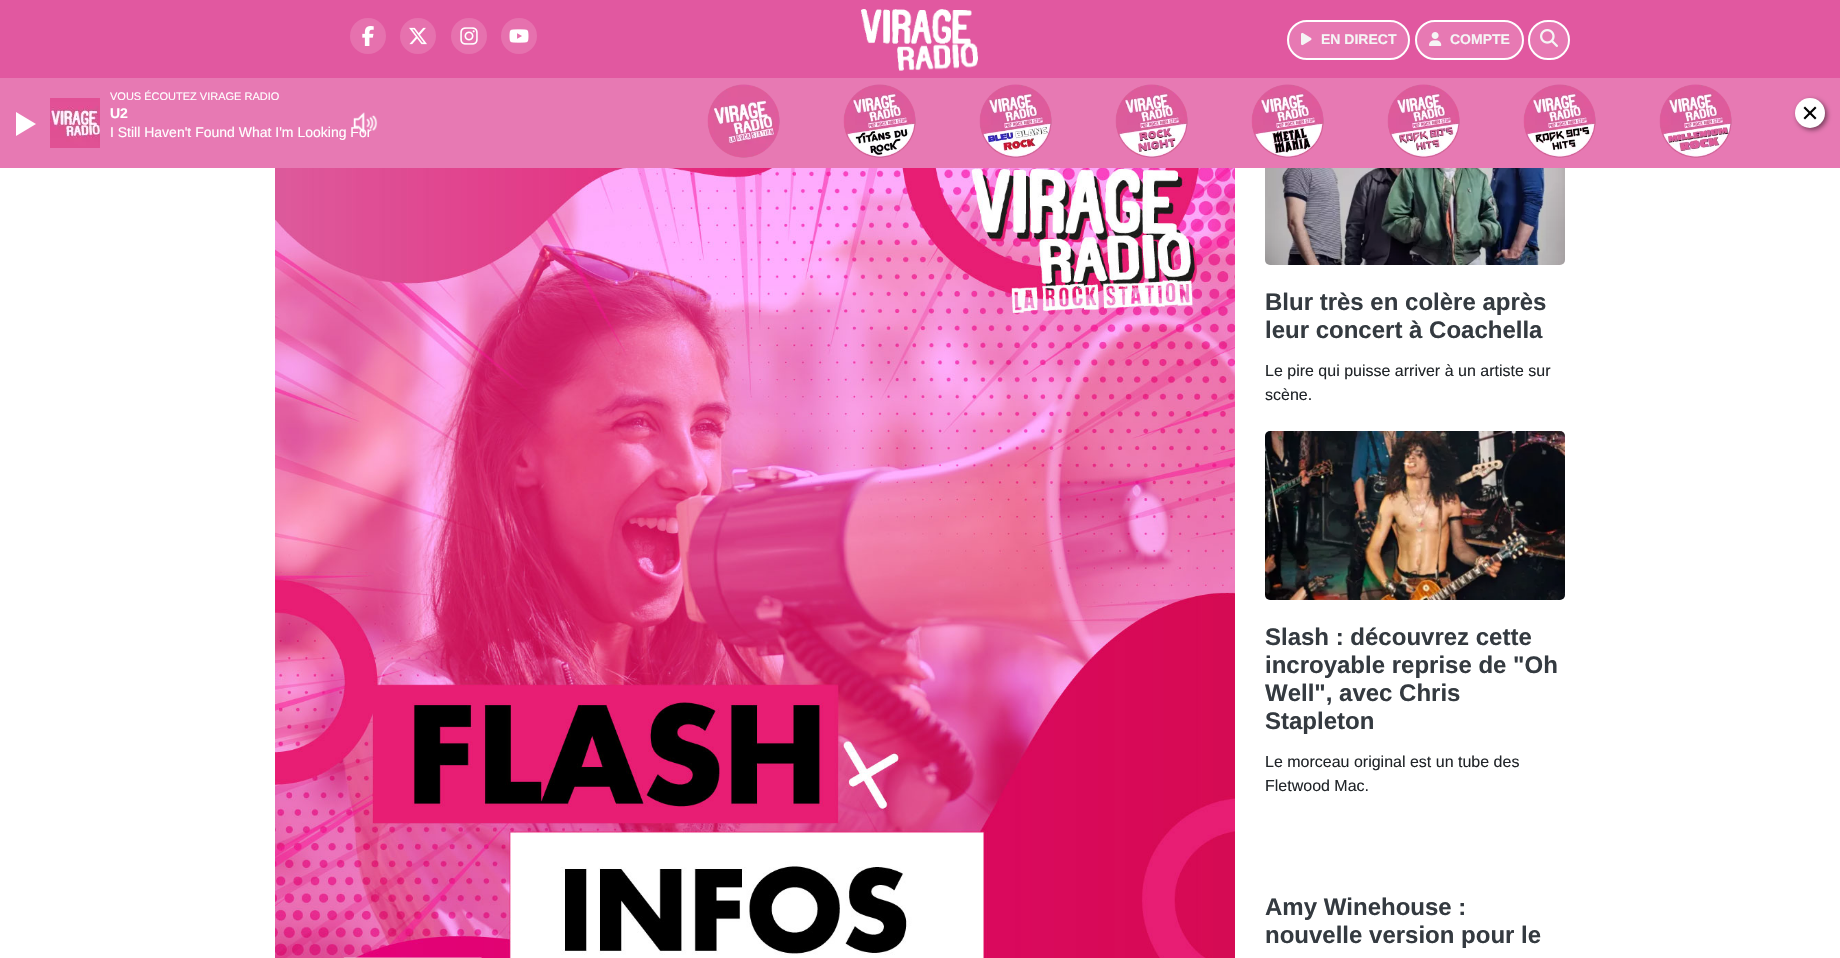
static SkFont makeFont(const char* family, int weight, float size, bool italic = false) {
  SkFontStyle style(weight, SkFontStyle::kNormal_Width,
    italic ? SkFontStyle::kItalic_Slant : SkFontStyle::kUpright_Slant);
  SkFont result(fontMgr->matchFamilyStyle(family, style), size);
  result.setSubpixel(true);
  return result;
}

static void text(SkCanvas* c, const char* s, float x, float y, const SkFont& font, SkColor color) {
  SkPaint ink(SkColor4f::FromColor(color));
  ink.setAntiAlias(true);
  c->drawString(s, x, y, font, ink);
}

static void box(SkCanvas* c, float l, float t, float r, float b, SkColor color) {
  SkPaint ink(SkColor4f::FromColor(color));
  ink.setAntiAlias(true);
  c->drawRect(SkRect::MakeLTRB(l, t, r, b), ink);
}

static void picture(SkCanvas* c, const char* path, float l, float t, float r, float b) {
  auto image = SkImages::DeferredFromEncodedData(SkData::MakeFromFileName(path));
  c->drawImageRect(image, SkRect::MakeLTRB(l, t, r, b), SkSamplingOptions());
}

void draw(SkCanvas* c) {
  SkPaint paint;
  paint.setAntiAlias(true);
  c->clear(0xffffffff);
  box(c, 0, 78, 1840, 168, 0xffe779b3);
  SkFont face1 = makeFont("Liberation Sans", 400, 11);
  text(c, "VOUS ÉCOUTEZ VIRAGE RADIO", 110, 100, face1, 0xffffffff);
  picture(c, "img_01.png", 50, 98, 100, 148);
  SkFont face2 = makeFont("Liberation Sans", 700, 14);
  text(c, "U2", 110, 118, face2, 0xffffffff);
  SkFont face3 = makeFont("Liberation Sans", 400, 14);
  text(c, "I Still Haven't Found What I'm Looking For", 110, 137, face3, 0xffffffff);
  paint.setColor(0xffffffff);
  c->drawPath(SkPathBuilder().moveTo(16, 136).lineTo(16, 112).lineTo(36, 124).close().detach(), paint);
  picture(c, "img_02.png", 353, 112, 378, 134);
  picture(c, "img_03.png", 707, 84, 780, 158);
  picture(c, "img_04.png", 843, 84, 916, 158);
  picture(c, "img_05.png", 979, 84, 1052, 158);
  picture(c, "img_06.png", 1115, 84, 1188, 158);
  picture(c, "img_07.png", 1251, 84, 1324, 158);
  picture(c, "img_08.png", 1387, 84, 1460, 158);
  picture(c, "img_09.png", 1523, 84, 1596, 158);
  picture(c, "img_10.png", 1659, 84, 1732, 158);
  paint.setColor(0x80000000);
  paint.setMaskFilter(SkMaskFilter::MakeBlur(kNormal_SkBlurStyle, 2.5f));
  c->drawRoundRect(SkRect::MakeLTRB(1797, 100, 1827, 130), 15, 15, paint);
  paint.setMaskFilter(nullptr);
  paint.setColor(0xffffffff);
  c->drawCircle(1810, 113, 15, paint);
  paint.setColor(0xff000000);
  c->drawPath(SkPathBuilder().moveTo(1805, 106.5f).lineTo(1816.5f, 118).lineTo(1815, 119.5f).lineTo(1803.5f, 108).close().detach(), paint);
  c->drawPath(SkPathBuilder().moveTo(1803.5f, 118).lineTo(1815, 106.5f).lineTo(1816.5f, 108).lineTo(1805, 119.5f).close().detach(), paint);
  box(c, 0, 0, 1840, 78, 0xffe158a0);
  paint.setColor(0xffe671ae);
  c->drawCircle(368, 36, 18, paint);
  picture(c, "img_11.png", 362, 26, 374, 46);
  c->drawCircle(418, 36, 18, paint);
  picture(c, "img_12.png", 409, 27, 427, 45);
  c->drawCircle(469, 36, 18, paint);
  picture(c, "img_13.png", 460, 27, 478, 45);
  c->drawCircle(519, 36, 18, paint);
  picture(c, "img_14.png", 509, 29, 529, 43);
  picture(c, "img_15.png", 861, 9, 978, 71);
  paint.setColor(0xffe779b3);
  c->drawRoundRect(SkRect::MakeLTRB(1288, 21, 1409, 59), 19, 19, paint);
  paint.setStyle(SkPaint::kStroke_Style);
  paint.setStrokeWidth(2);
  paint.setColor(0xffffffff);
  c->drawRoundRect(SkRect::MakeLTRB(1288, 21, 1409, 59), 19, 19, paint);
  picture(c, "img_16.png", 1301, 32, 1312, 46);
  text(c, "EN DIRECT", 1321, 44, face2, 0xfff5f5f5);
  paint.setStyle(SkPaint::kFill_Style);
  paint.setColor(0xffe779b3);
  c->drawRoundRect(SkRect::MakeLTRB(1416, 21, 1523, 59), 19, 19, paint);
  paint.setStyle(SkPaint::kStroke_Style);
  paint.setColor(0xffffffff);
  c->drawRoundRect(SkRect::MakeLTRB(1416, 21, 1523, 59), 19, 19, paint);
  picture(c, "img_17.png", 1429, 32, 1442, 46);
  text(c, "COMPTE", 1450, 44, face2, 0xfff5f5f5);
  paint.setStyle(SkPaint::kFill_Style);
  paint.setColor(0xffe779b3);
  c->drawRoundRect(SkRect::MakeLTRB(1529, 21, 1569, 59), 19, 19, paint);
  paint.setStyle(SkPaint::kStroke_Style);
  paint.setColor(0xffffffff);
  c->drawRoundRect(SkRect::MakeLTRB(1529, 21, 1569, 59), 19, 19, paint);
  picture(c, "img_18.png", 1540, 29, 1558, 47);
  picture(c, "img_19.png", 275, 168, 1235, 958);
  picture(c, "img_20.png", 1265, 168, 1565, 265);
  SkFont face4 = makeFont("Liberation Sans", 700, 24);
  text(c, "Blur très en colère après", 1265, 310, face4, 0xff343a40);
  text(c, "leur concert à Coachella", 1265, 338, face4, 0xff343a40);
  SkFont face5 = makeFont("Liberation Sans", 400, 16);
  text(c, "Le pire qui puisse arriver à un artiste sur", 1265, 376, face5, 0xff212529);
  text(c, "scène.", 1265, 400, face5, 0xff212529);
  picture(c, "img_21.png", 1265, 431, 1565, 600);
  text(c, "Slash : découvrez cette", 1265, 645, face4, 0xff343a40);
  text(c, "incroyable reprise de \"Oh", 1265, 673, face4, 0xff343a40);
  text(c, "Well\", avec Chris", 1265, 701, face4, 0xff343a40);
  text(c, "Stapleton", 1265, 729, face4, 0xff343a40);
  text(c, "Le morceau original est un tube des", 1265, 767, face5, 0xff212529);
  text(c, "Fletwood Mac.", 1265, 791, face5, 0xff212529);
  text(c, "Amy Winehouse :", 1265, 915, face4, 0xff343a40);
  text(c, "nouvelle version pour le", 1265, 943, face4, 0xff343a40);
}
